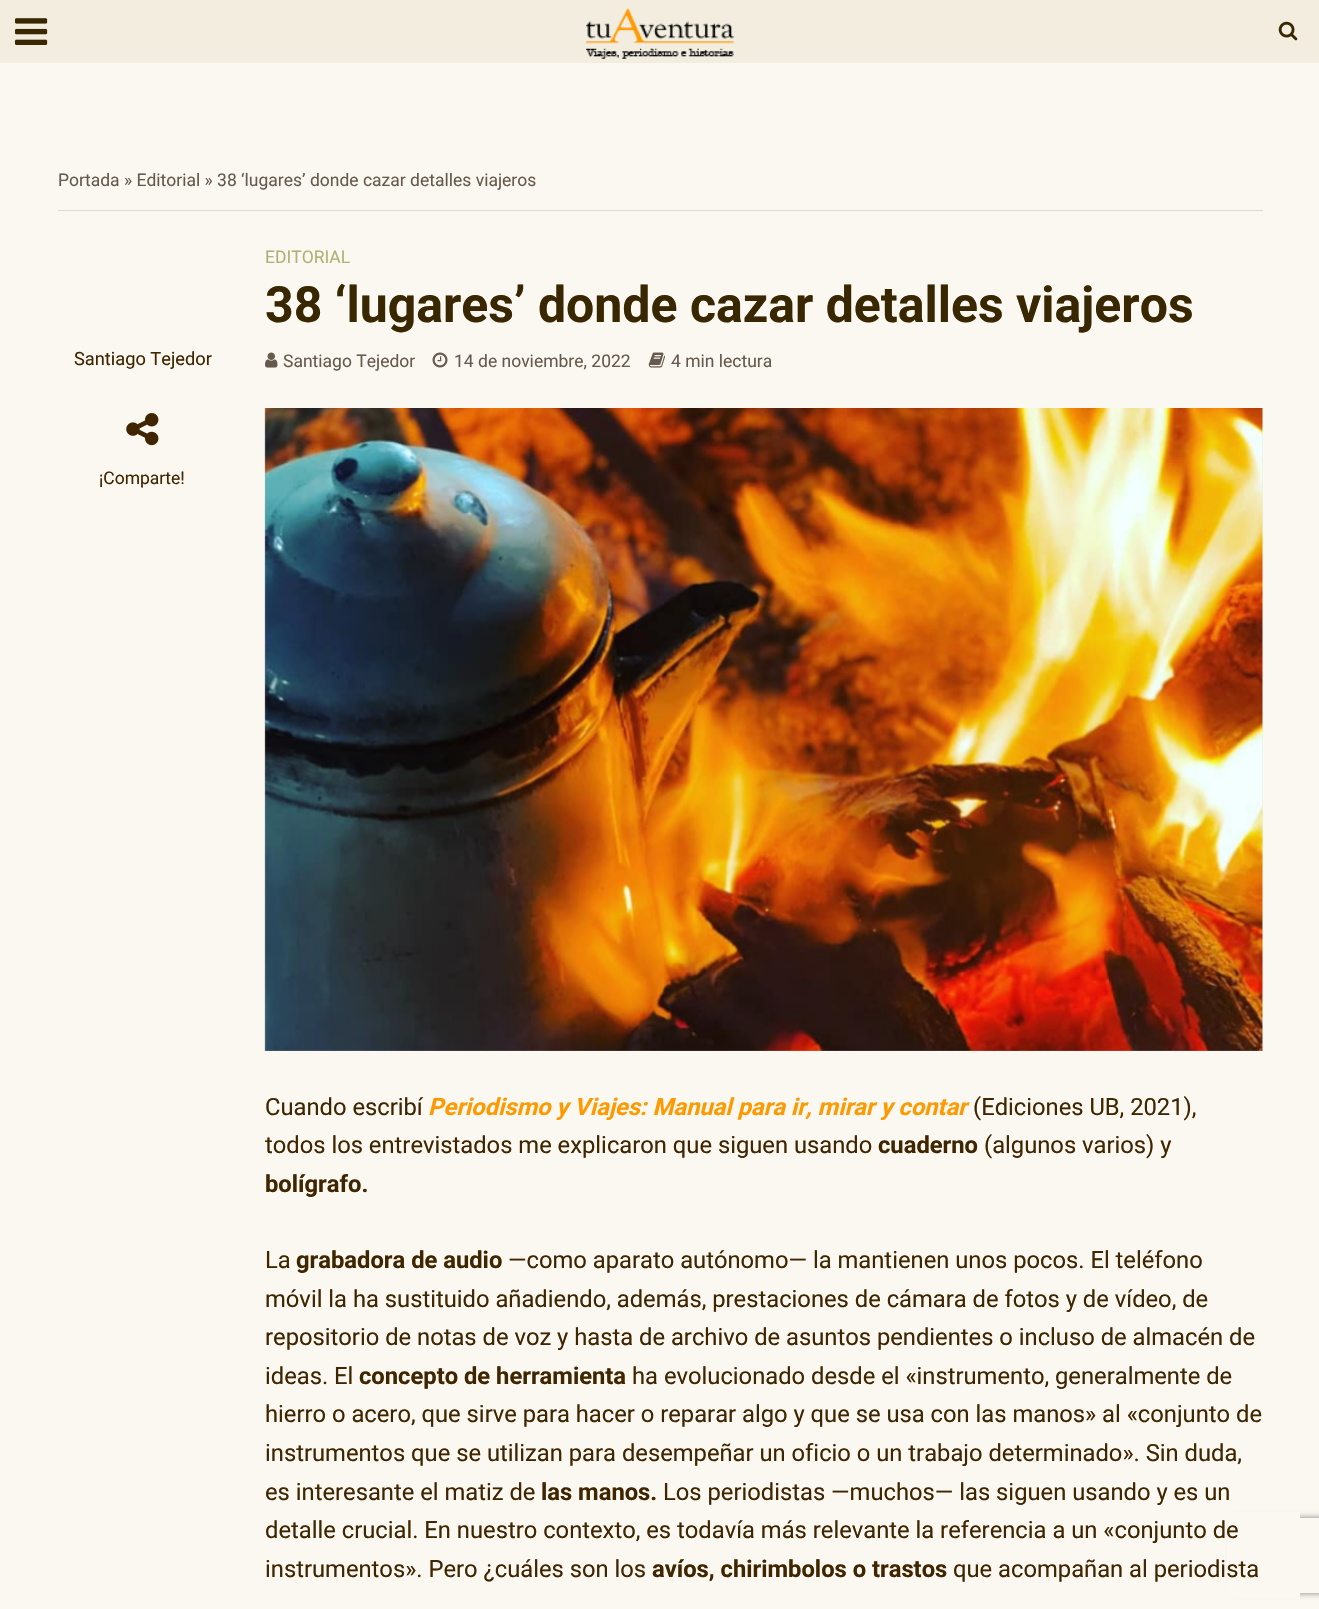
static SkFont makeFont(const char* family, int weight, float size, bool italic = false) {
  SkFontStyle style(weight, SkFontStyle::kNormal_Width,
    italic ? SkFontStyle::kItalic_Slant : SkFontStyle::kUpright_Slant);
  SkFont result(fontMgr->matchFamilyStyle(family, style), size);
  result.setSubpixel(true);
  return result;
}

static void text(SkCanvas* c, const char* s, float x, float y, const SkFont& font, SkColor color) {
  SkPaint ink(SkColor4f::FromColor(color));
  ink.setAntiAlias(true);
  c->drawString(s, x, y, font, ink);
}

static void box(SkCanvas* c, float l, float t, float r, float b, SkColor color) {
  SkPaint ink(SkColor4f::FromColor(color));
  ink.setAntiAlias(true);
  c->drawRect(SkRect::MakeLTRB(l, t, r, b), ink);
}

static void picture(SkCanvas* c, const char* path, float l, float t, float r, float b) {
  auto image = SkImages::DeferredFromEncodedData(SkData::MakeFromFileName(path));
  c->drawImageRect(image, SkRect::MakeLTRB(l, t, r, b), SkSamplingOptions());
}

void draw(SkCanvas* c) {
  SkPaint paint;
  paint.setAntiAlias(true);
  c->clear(0xfffbf8f1);
  box(c, 0, 0, 1319, 63, 0xfff2eddf);
  picture(c, "img_01.png", 15, 18, 48, 45);
  picture(c, "img_02.png", 586, 8, 734, 59);
  picture(c, "img_03.png", 1278, 21, 1298, 41);
  c->save();
  c->clipPath(SkPathBuilder(SkPathFillType::kEvenOdd).moveTo(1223, 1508).lineTo(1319, 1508).lineTo(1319, 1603).lineTo(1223, 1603).close().moveTo(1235.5f, 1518).lineTo(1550.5f, 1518).cubicTo(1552, 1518, 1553, 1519, 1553, 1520.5f).lineTo(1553, 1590.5f).cubicTo(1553, 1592, 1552, 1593, 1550.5f, 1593).lineTo(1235.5f, 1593).cubicTo(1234, 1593, 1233, 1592, 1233, 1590.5f).lineTo(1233, 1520.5f).cubicTo(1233, 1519, 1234, 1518, 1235.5f, 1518).close().detach(), true);
  paint.setColor(0xff808080);
  paint.setMaskFilter(SkMaskFilter::MakeBlur(kNormal_SkBlurStyle, 3));
  c->drawRoundRect(SkRect::MakeLTRB(1233, 1518, 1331, 1593), 2.5f, 2.5f, paint);
  paint.setMaskFilter(nullptr);
  c->restore();
  box(c, 1227, 1512, 1300, 1599, 0xfffbf8f1);
  box(c, 58, 210, 1263, 211, 0xffdfd9cd);
  SkFont face1 = makeFont("Roboto", 400, 17.5f);
  text(c, "Portada » Editorial » 38 ‘lugares’ donde cazar detalles viajeros", 58, 186, face1, 0xff66594d);
  SkFont face2 = makeFont("Roboto", 400, 18.25f);
  text(c, "Santiago Tejedor", 74, 365, face2, 0xff402600);
  picture(c, "img_04.png", 126, 413, 159, 446);
  text(c, "¡Comparte!", 99, 484, face1, 0xff402600);
  text(c, "EDITORIAL", 265, 263, face1, 0xffb2b175);
  SkFont face3 = makeFont("Roboto", 700, 50);
  text(c, "38 ‘lugares’ donde cazar detalles viajeros", 265, 322, face3, 0xff382700);
  picture(c, "img_05.png", 265, 352, 278, 368);
  text(c, "Santiago Tejedor", 283, 367, face1, 0xff66594d);
  picture(c, "img_06.png", 432, 352, 448, 368);
  text(c, "14 de noviembre, 2022", 454, 367, face1, 0xff66594d);
  picture(c, "img_07.png", 648, 352, 665, 368);
  text(c, "4 min lectura", 671, 367, face1, 0xff66594d);
  box(c, 265, 408, 1263, 1051, 0xffeeede4);
  picture(c, "img_08.png", 264, 408, 1263, 1051);
  SkFont face4 = makeFont("Roboto", 400, 23.75f);
  text(c, "Cuando escribí", 265, 1115, face4, 0xff402600);
  SkFont face5 = makeFont("Roboto", 700, 23.75f, true);
  text(c, "Periodismo y Viajes: Manual para ir, mirar y contar", 428, 1115, face5, 0xffff9900);
  text(c, "(Ediciones UB, 2021),", 973, 1115, face4, 0xff402600);
  text(c, "todos los entrevistados me explicaron que siguen usando", 265, 1153, face4, 0xff402600);
  SkFont face6 = makeFont("Roboto", 700, 23.75f);
  text(c, "cuaderno", 878, 1153, face6, 0xff402600);
  text(c, "(algunos varios) y", 984, 1153, face4, 0xff402600);
  text(c, "bolígrafo.", 265, 1192, face6, 0xff402600);
  text(c, "La", 265, 1268, face4, 0xff402600);
  text(c, "grabadora de audio", 296, 1268, face6, 0xff402600);
  text(c, "—como aparato autónomo— la mantienen unos pocos. El teléfono", 508, 1268, face4, 0xff402600);
  text(c, "móvil la ha sustituido añadiendo, además, prestaciones de cámara de fotos y de vídeo, de", 265, 1307, face4, 0xff402600);
  text(c, "repositorio de notas de voz y hasta de archivo de asuntos pendientes o incluso de almacén de", 265, 1345, face4, 0xff402600);
  text(c, "ideas. El", 265, 1384, face4, 0xff402600);
  text(c, "concepto de herramienta", 359, 1384, face6, 0xff402600);
  text(c, "ha evolucionado desde el «instrumento, generalmente de", 632, 1384, face4, 0xff402600);
  text(c, "hierro o acero, que sirve para hacer o reparar algo y que se usa con las manos» al «conjunto de", 265, 1422, face4, 0xff402600);
  text(c, "instrumentos que se utilizan para desempeñar un oficio o un trabajo determinado». Sin duda,", 265, 1461, face4, 0xff402600);
  text(c, "es interesante el matiz de", 265, 1500, face4, 0xff402600);
  text(c, "las manos.", 541, 1500, face6, 0xff402600);
  text(c, "Los periodistas —muchos— las siguen usando y es un", 663, 1500, face4, 0xff402600);
  text(c, "detalle crucial. En nuestro contexto, es todavía más relevante la referencia a un «conjunto de", 265, 1538, face4, 0xff402600);
  text(c, "instrumentos». Pero ¿cuáles son los", 265, 1577, face4, 0xff402600);
  text(c, "avíos, chirimbolos o trastos", 652, 1577, face6, 0xff402600);
  text(c, "que acompañan al periodista", 953, 1577, face4, 0xff402600);
}
